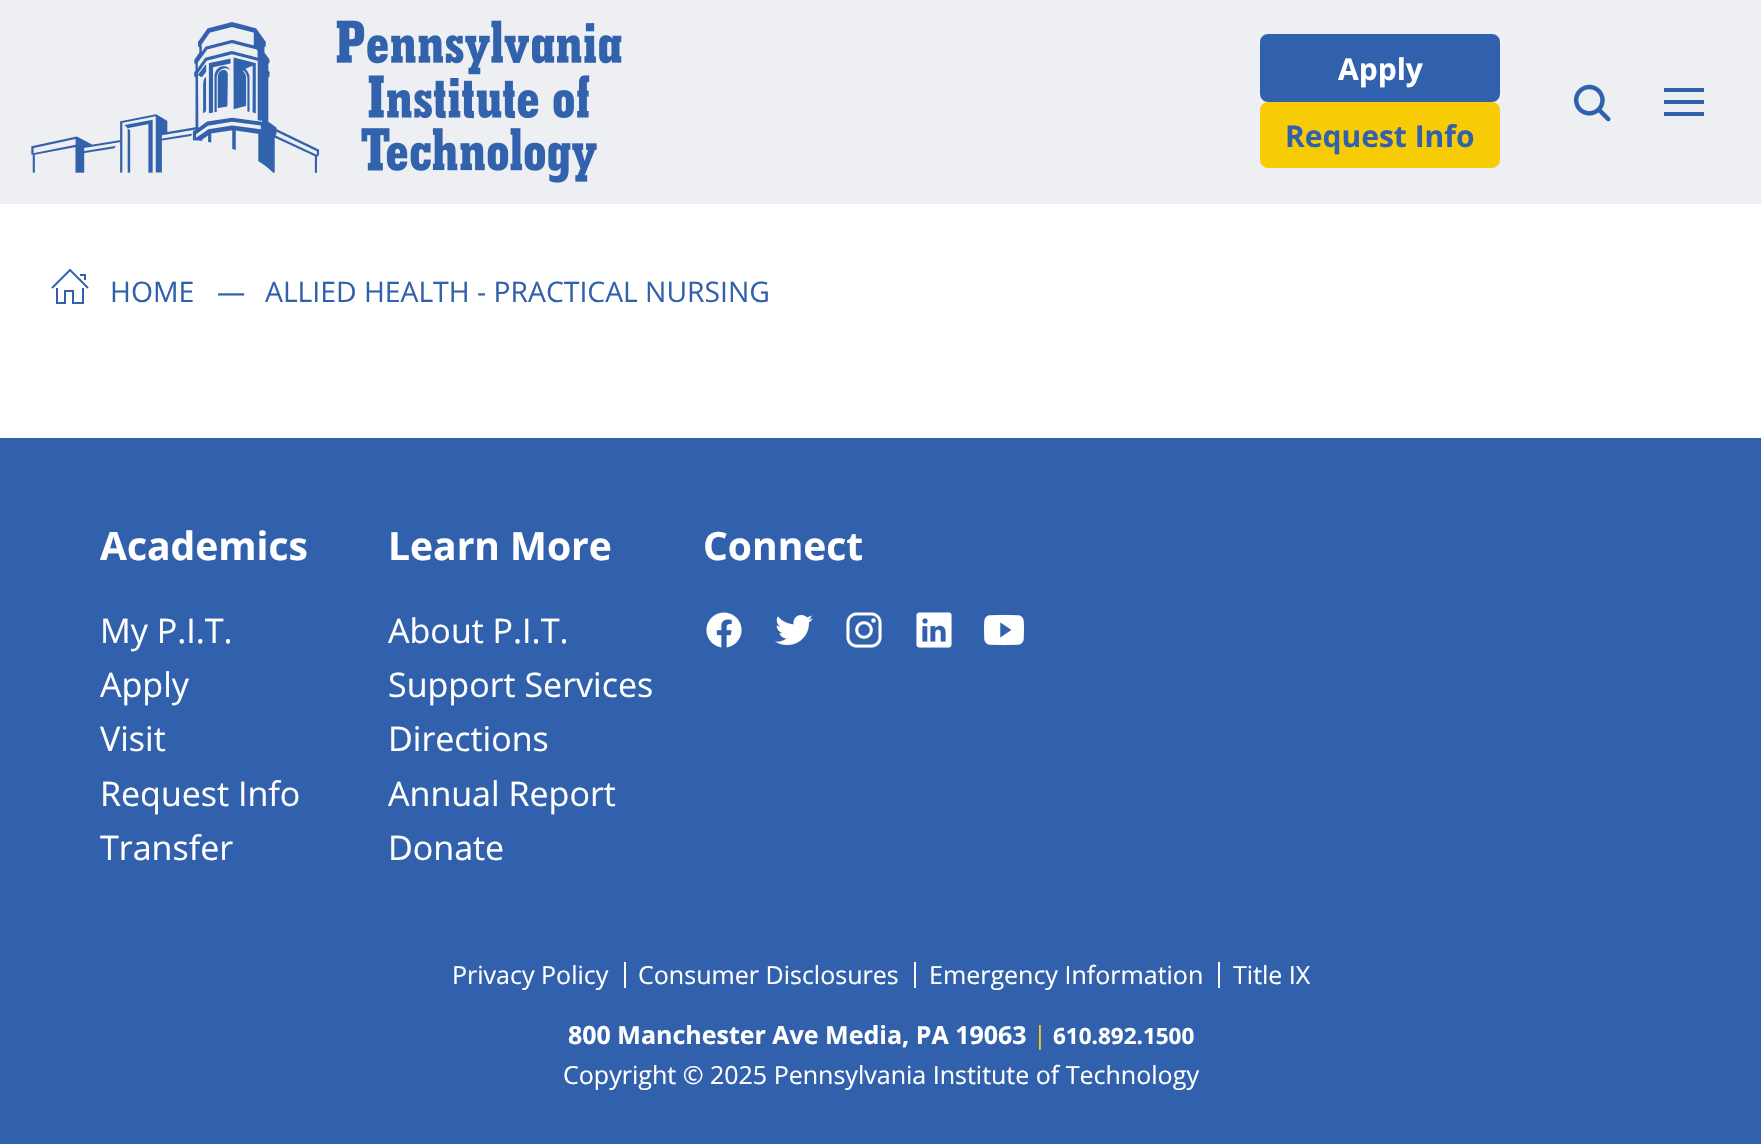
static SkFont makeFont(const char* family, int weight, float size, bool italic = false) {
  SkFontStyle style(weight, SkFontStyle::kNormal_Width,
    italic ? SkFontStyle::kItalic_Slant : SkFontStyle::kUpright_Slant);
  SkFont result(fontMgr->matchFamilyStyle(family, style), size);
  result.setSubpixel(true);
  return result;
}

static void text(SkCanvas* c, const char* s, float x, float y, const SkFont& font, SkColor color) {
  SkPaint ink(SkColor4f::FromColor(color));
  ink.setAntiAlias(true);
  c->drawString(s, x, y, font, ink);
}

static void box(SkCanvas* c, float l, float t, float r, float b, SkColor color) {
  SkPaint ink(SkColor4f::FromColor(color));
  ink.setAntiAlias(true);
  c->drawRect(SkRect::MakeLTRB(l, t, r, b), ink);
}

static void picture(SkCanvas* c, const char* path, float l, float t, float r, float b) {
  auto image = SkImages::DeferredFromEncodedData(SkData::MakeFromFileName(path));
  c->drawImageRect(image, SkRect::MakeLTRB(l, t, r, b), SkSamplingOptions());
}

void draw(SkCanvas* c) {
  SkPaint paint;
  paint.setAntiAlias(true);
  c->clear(0xffffffff);
  box(c, 0, 0, 1761, 204, 0xffeeeff3);
  picture(c, "img_01.png", 31, 20, 622, 183);
  paint.setColor(0xff3161ac);
  c->drawRoundRect(SkRect::MakeLTRB(1261, 35, 1499, 101), 7, 7, paint);
  paint.setStyle(SkPaint::kStroke_Style);
  paint.setStrokeWidth(2);
  c->drawRoundRect(SkRect::MakeLTRB(1261, 35, 1499, 101), 7, 7, paint);
  SkFont face1 = makeFont("Open Sans", 700, 30);
  text(c, "Apply", 1338, 80, face1, 0xffffffff);
  paint.setStyle(SkPaint::kFill_Style);
  paint.setColor(0xfff7cc07);
  c->drawRoundRect(SkRect::MakeLTRB(1261, 103, 1499, 167), 7, 7, paint);
  paint.setStyle(SkPaint::kStroke_Style);
  c->drawRoundRect(SkRect::MakeLTRB(1261, 103, 1499, 167), 7, 7, paint);
  text(c, "Request Info", 1285, 147, face1, 0xff3161ac);
  picture(c, "img_02.png", 1573, 84, 1611, 122);
  box(c, 1664, 100, 1704, 104, 0xff3161ac);
  box(c, 1664, 88, 1704, 92, 0xff3161ac);
  box(c, 1664, 112, 1704, 116, 0xff3161ac);
  picture(c, "img_03.png", 51, 268, 89, 304);
  SkFont face2 = makeFont("Open Sans", 400, 28.3f);
  text(c, "HOME", 110, 302, face2, 0xff3161ac);
  text(c, "—", 217, 302, face2, 0xff3161ac);
  text(c, "ALLIED HEALTH - PRACTICAL NURSING", 265, 302, face2, 0xff3161ac);
  box(c, 0, 438, 1761, 1144, 0xff3161ac);
  SkFont face3 = makeFont("Open Sans", 700, 39);
  text(c, "Academics", 100, 560, face3, 0xffffffff);
  SkFont face4 = makeFont("Open Sans", 400, 34);
  text(c, "My P.I.T.", 100, 643, face4, 0xffffffff);
  text(c, "Apply", 100, 697, face4, 0xffffffff);
  text(c, "Visit", 100, 751, face4, 0xffffffff);
  text(c, "Request Info", 100, 806, face4, 0xffffffff);
  text(c, "Transfer", 100, 860, face4, 0xffffffff);
  text(c, "Learn More", 388, 560, face3, 0xffffffff);
  text(c, "About P.I.T.", 388, 643, face4, 0xffffffff);
  text(c, "Support Services", 388, 697, face4, 0xffffffff);
  text(c, "Directions", 388, 751, face4, 0xffffffff);
  text(c, "Annual Report", 388, 806, face4, 0xffffffff);
  text(c, "Donate", 388, 860, face4, 0xffffffff);
  text(c, "Connect", 703, 560, face3, 0xffffffff);
  picture(c, "img_04.png", 706, 612, 742, 648);
  picture(c, "img_05.png", 775, 614, 813, 646);
  picture(c, "img_06.png", 846, 612, 882, 648);
  picture(c, "img_07.png", 916, 612, 952, 648);
  picture(c, "img_08.png", 984, 614, 1024, 646);
  SkFont face5 = makeFont("Open Sans", 400, 25);
  text(c, "Privacy Policy", 452, 984, face5, 0xffffffff);
  box(c, 624, 962, 626, 988, 0xffffffff);
  text(c, "Consumer Disclosures", 638, 984, face5, 0xffffffff);
  box(c, 914, 962, 916, 988, 0xffffffff);
  text(c, "Emergency Information", 929, 984, face5, 0xffffffff);
  box(c, 1218, 962, 1220, 988, 0xffffffff);
  text(c, "Title IX", 1233, 984, face5, 0xffffffff);
  SkFont face6 = makeFont("Open Sans", 700, 25);
  text(c, "800 Manchester Ave Media, PA 19063", 568, 1044, face6, 0xffffffff);
  text(c, "|", 1033, 1044, face5, 0xfff7cc07);
  SkFont face7 = makeFont("Open Sans", 700, 22.5f);
  text(c, "610.892.1500", 1053, 1044, face7, 0xffffffff);
  text(c, "Copyright © 2025 Pennsylvania Institute of Technology", 563, 1084, face5, 0xffffffff);
}
